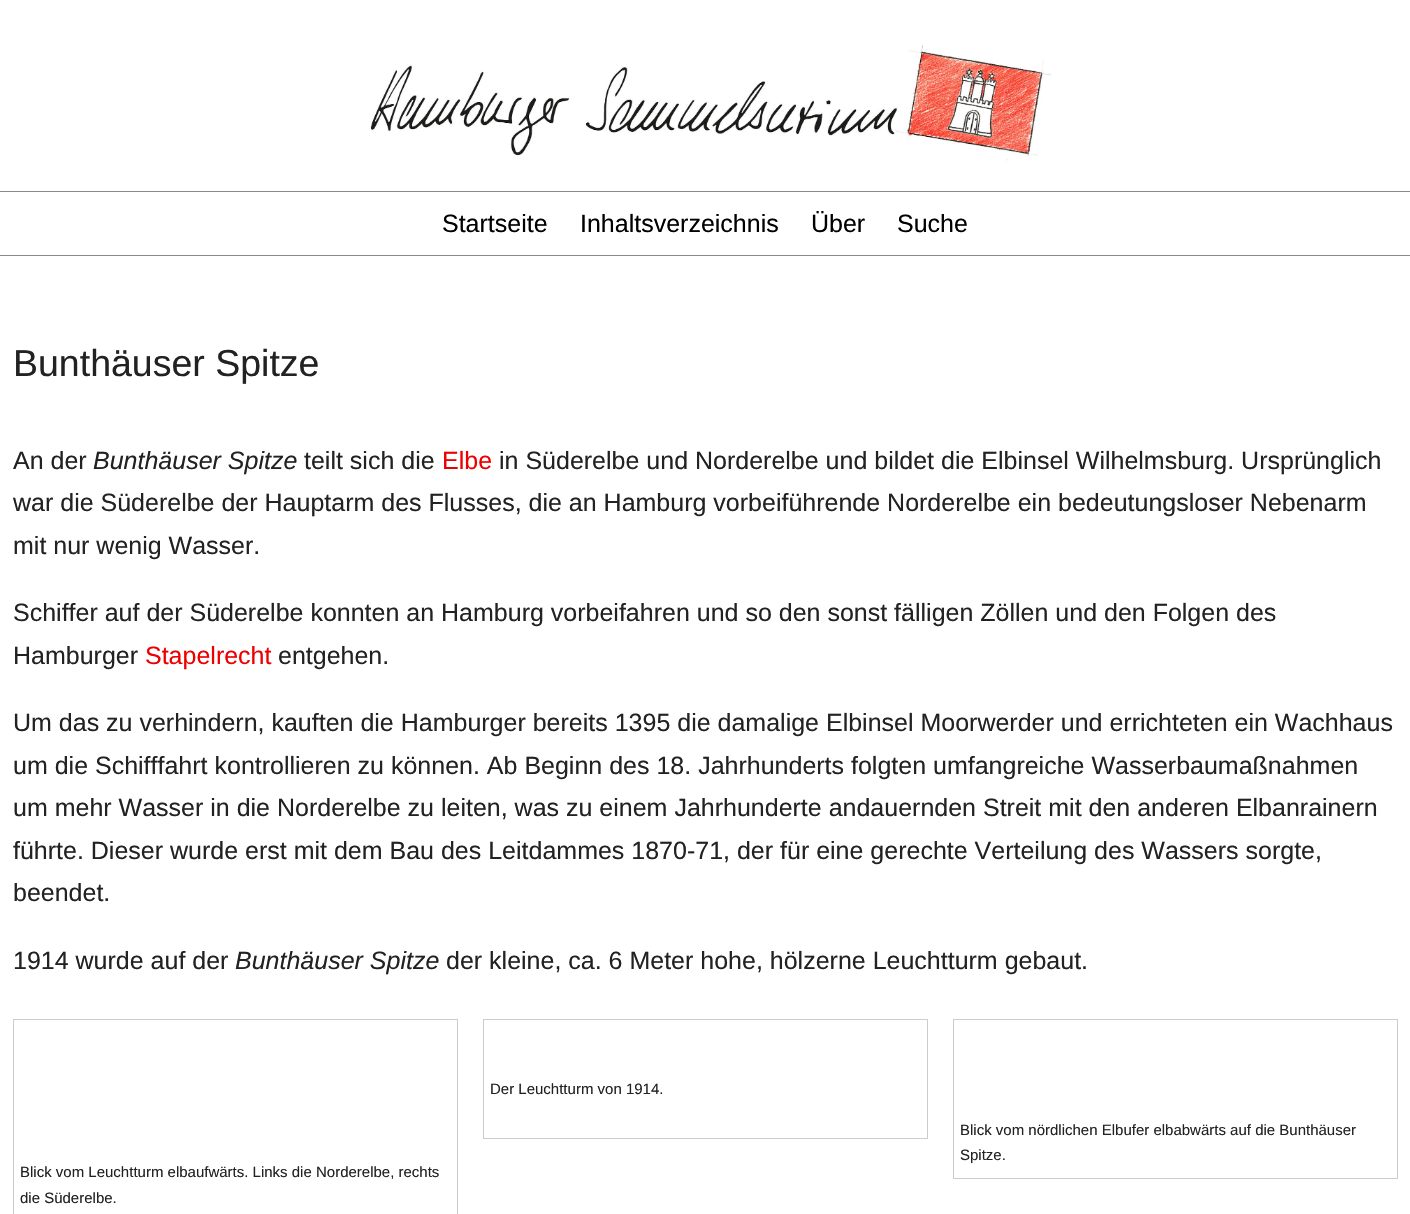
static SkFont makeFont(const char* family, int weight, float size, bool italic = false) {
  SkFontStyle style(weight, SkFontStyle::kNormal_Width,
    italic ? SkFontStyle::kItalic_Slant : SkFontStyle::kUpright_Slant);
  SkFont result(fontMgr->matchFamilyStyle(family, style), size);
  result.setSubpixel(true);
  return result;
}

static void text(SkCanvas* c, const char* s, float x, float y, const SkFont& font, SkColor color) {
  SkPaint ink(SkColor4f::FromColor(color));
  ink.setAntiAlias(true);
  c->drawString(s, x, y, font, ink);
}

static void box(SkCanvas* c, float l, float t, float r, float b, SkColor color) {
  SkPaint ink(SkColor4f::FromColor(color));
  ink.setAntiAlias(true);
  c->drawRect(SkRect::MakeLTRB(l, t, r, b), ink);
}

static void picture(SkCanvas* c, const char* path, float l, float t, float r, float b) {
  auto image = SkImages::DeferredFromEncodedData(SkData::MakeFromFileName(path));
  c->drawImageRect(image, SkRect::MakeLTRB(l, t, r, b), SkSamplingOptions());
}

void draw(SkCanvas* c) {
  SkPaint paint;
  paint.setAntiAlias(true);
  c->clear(0xffffffff);
  box(c, 0, 191, 1410, 192, 0xff888888);
  picture(c, "img_01.png", 370, 45, 1052, 164);
  box(c, 0, 255, 1410, 256, 0xff888888);
  SkFont face1 = makeFont("Liberation Sans", 400, 25);
  text(c, "Startseite", 442, 232, face1, 0xff000000);
  text(c, "Inhaltsverzeichnis", 580, 232, face1, 0xff000000);
  text(c, "Über", 811, 232, face1, 0xff000000);
  text(c, "Suche", 897, 232, face1, 0xff000000);
  SkFont face2 = makeFont("Liberation Sans", 400, 37.5f);
  text(c, "Bunthäuser Spitze", 13, 376, face2, 0xff222222);
  text(c, "An der", 13, 469, face1, 0xff222222);
  SkFont face3 = makeFont("Liberation Sans", 400, 25, true);
  text(c, "Bunthäuser Spitze", 93, 469, face3, 0xff222222);
  text(c, "teilt sich die", 304, 469, face1, 0xff222222);
  text(c, "Elbe", 442, 469, face1, 0xffee0000);
  text(c, "in Süderelbe und Norderelbe und bildet die Elbinsel Wilhelmsburg. Ursprünglich", 499, 469, face1, 0xff222222);
  text(c, "war die Süderelbe der Hauptarm des Flusses, die an Hamburg vorbeiführende Norderelbe ein bedeutungsloser Nebenarm", 13, 511, face1, 0xff222222);
  text(c, "mit nur wenig Wasser.", 13, 554, face1, 0xff222222);
  text(c, "Schiffer auf der Süderelbe konnten an Hamburg vorbeifahren und so den sonst fälligen Zöllen und den Folgen des", 13, 621, face1, 0xff222222);
  text(c, "Hamburger", 13, 664, face1, 0xff222222);
  text(c, "Stapelrecht", 145, 664, face1, 0xffee0000);
  text(c, "entgehen.", 278, 664, face1, 0xff222222);
  text(c, "Um das zu verhindern, kauften die Hamburger bereits 1395 die damalige Elbinsel Moorwerder und errichteten ein Wachhaus", 13, 731, face1, 0xff222222);
  text(c, "um die Schifffahrt kontrollieren zu können. Ab Beginn des 18. Jahrhunderts folgten umfangreiche Wasserbaumaßnahmen", 13, 774, face1, 0xff222222);
  text(c, "um mehr Wasser in die Norderelbe zu leiten, was zu einem Jahrhunderte andauernden Streit mit den anderen Elbanrainern", 13, 816, face1, 0xff222222);
  text(c, "führte. Dieser wurde erst mit dem Bau des Leitdammes 1870-71, der für eine gerechte Verteilung des Wassers sorgte,", 13, 859, face1, 0xff222222);
  text(c, "beendet.", 13, 901, face1, 0xff222222);
  text(c, "1914 wurde auf der", 13, 969, face1, 0xff222222);
  text(c, "Bunthäuser Spitze", 235, 969, face3, 0xff222222);
  text(c, "der kleine, ca. 6 Meter hohe, hölzerne Leuchtturm gebaut.", 446, 969, face1, 0xff222222);
  paint.setStyle(SkPaint::kStroke_Style);
  paint.setStrokeWidth(1);
  paint.setColor(0xffcccccc);
  c->drawRect(SkRect::MakeLTRB(483.5f, 1019.5f, 927.5f, 1138.5f), paint);
  SkFont face4 = makeFont("Liberation Sans", 400, 15);
  text(c, "Der Leuchtturm von 1914.", 490, 1094, face4, 0xff222222);
  c->drawRect(SkRect::MakeLTRB(953.5f, 1019.5f, 1397.5f, 1178.5f), paint);
  text(c, "Blick vom nördlichen Elbufer elbabwärts auf die Bunthäuser", 960, 1135, face4, 0xff222222);
  text(c, "Spitze.", 960, 1160, face4, 0xff222222);
  c->drawRect(SkRect::MakeLTRB(13.5f, 1019.5f, 457.5f, 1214.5f), paint);
  text(c, "Blick vom Leuchtturm elbaufwärts. Links die Norderelbe, rechts", 20, 1177, face4, 0xff222222);
  text(c, "die Süderelbe.", 20, 1203, face4, 0xff222222);
}
